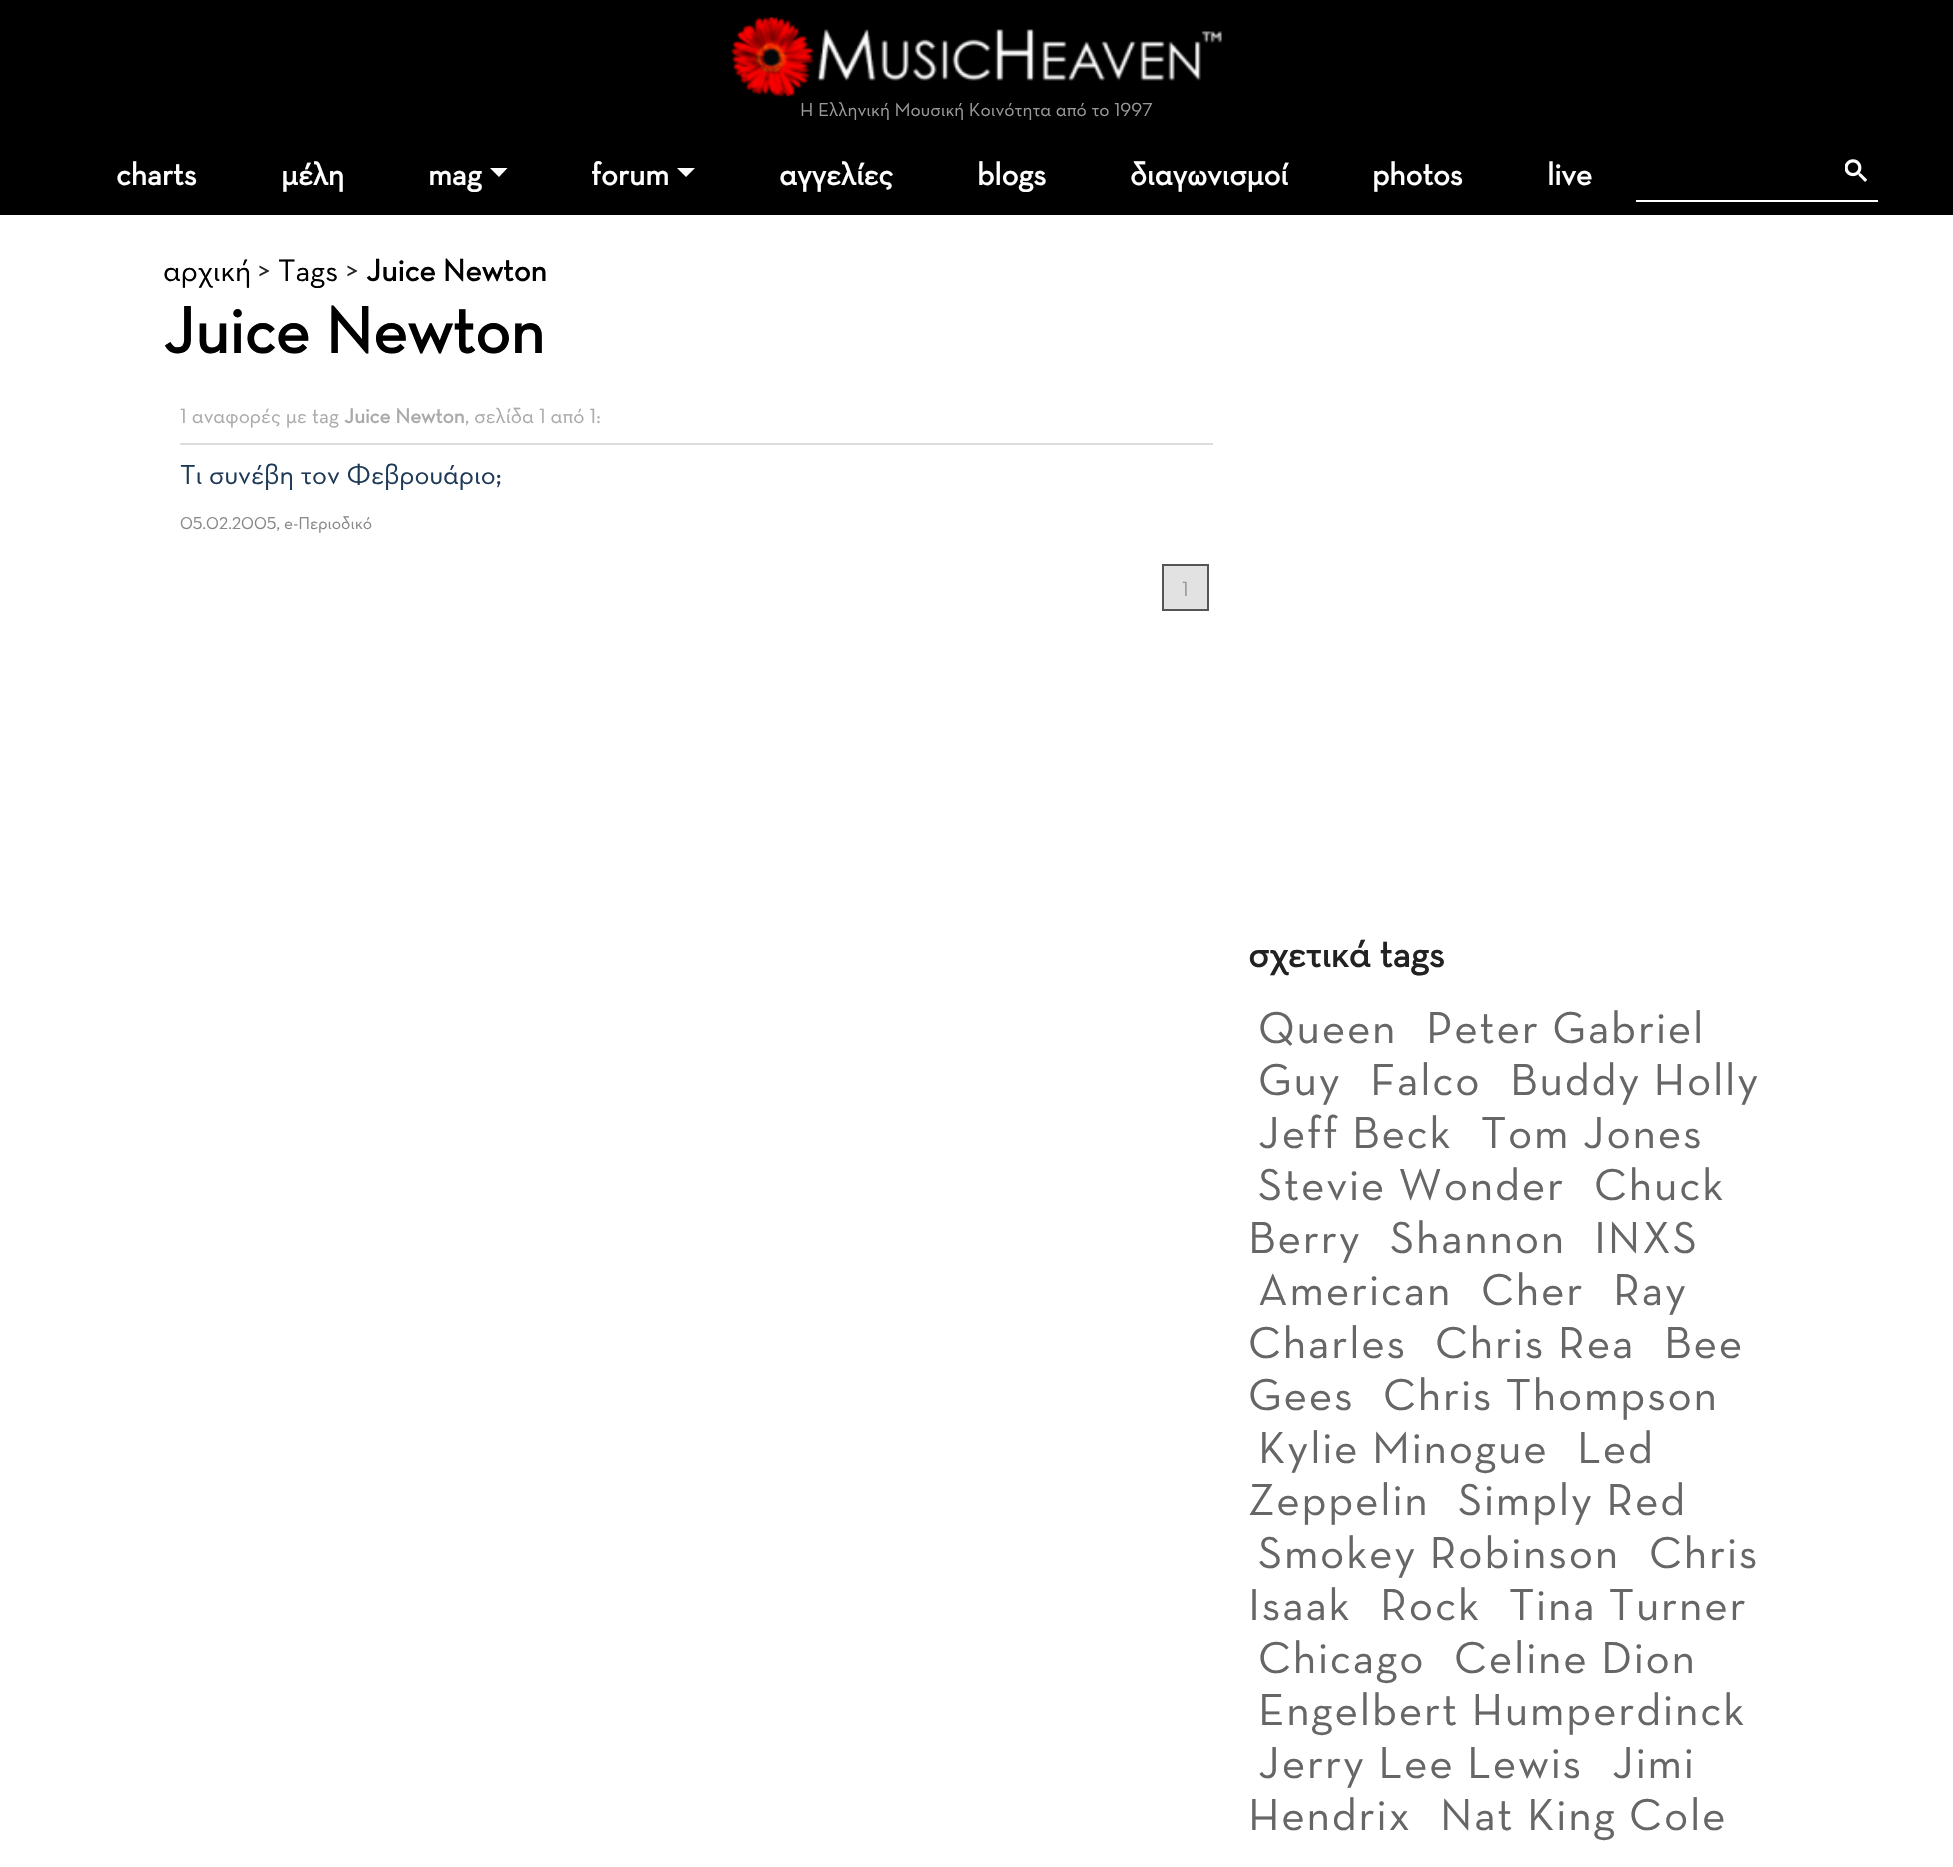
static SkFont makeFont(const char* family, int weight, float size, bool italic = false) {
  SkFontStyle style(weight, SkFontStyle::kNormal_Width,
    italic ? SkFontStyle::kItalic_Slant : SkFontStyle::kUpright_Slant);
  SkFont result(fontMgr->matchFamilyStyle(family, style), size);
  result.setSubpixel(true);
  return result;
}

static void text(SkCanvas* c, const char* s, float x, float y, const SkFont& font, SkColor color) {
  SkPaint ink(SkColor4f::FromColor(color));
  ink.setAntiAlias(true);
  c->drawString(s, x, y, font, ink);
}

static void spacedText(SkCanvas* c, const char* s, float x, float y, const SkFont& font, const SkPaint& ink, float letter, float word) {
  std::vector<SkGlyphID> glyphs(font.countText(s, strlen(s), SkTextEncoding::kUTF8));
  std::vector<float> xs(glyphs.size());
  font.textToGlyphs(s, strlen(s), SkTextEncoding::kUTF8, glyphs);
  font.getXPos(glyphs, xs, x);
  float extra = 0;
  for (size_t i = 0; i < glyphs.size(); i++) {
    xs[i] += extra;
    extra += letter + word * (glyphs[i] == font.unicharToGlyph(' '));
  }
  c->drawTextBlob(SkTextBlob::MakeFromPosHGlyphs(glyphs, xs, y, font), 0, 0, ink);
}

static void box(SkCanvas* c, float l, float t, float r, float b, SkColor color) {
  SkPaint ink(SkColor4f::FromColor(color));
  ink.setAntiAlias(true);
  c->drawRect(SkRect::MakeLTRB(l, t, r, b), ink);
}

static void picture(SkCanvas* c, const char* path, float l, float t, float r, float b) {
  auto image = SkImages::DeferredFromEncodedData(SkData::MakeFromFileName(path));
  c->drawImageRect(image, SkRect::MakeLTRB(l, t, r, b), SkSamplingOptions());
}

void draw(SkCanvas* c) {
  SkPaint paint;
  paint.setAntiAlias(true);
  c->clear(0xffffffff);
  box(c, 0, 0, 1953, 215, 0xff000000);
  picture(c, "img_01.png", 731, 17, 1222, 97);
  SkFont face1 = makeFont("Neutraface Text", 400, 19.25f);
  text(c, "Η Ελληνική Μουσική Κοινότητα από το 1997", 800, 116, face1, 0xff999999);
  SkFont face2 = makeFont("Neutraface Text", 700, 31.5f);
  text(c, "charts", 116, 185, face2, 0xffffffff);
  text(c, "μέλη", 281, 185, face2, 0xffffffff);
  text(c, "mag", 428, 185, face2, 0xffffffff);
  paint.setColor(0xffffffff);
  c->drawPath(SkPathBuilder().moveTo(490, 168).lineTo(507.5f, 168).lineTo(499, 177).close().detach(), paint);
  text(c, "forum", 591, 185, face2, 0xffffffff);
  c->drawPath(SkPathBuilder().moveTo(677, 168).lineTo(695, 168).lineTo(686, 177).close().detach(), paint);
  text(c, "αγγελίες", 779, 185, face2, 0xffffffff);
  text(c, "blogs", 977, 185, face2, 0xffffffff);
  text(c, "διαγωνισμοί", 1130, 185, face2, 0xffffffff);
  text(c, "photos", 1372, 185, face2, 0xffffffff);
  text(c, "live", 1547, 185, face2, 0xffffffff);
  box(c, 1636, 200, 1878, 202, 0xffffffff);
  picture(c, "img_02.png", 1845, 159, 1867, 182);
  SkFont face3 = makeFont("Neutraface Text", 400, 31.5f);
  text(c, "αρχική", 163, 281, face3, 0xff000000);
  text(c, ">", 258, 281, face3, 0xff212529);
  text(c, "Tags", 278, 281, face3, 0xff000000);
  text(c, ">", 346, 281, face3, 0xff212529);
  text(c, "Juice Newton", 366, 281, face2, 0xff000000);
  SkFont face4 = makeFont("Neutraface Text", 700, 66.5f);
  text(c, "Juice Newton", 163, 353, face4, 0xff000000);
  box(c, 180, 443, 1213, 445, 0xffdddddd);
  SkFont face5 = makeFont("Neutraface Text", 400, 21);
  text(c, "1 αναφορές με tag", 180, 423, face5, 0xffaaaaaa);
  SkFont face6 = makeFont("Neutraface Text", 700, 21);
  text(c, "Juice Newton", 344, 423, face6, 0xffaaaaaa);
  text(c, ", σελίδα 1 από 1:", 465, 423, face5, 0xffaaaaaa);
  SkFont face7 = makeFont("Neutraface Text", 400, 28);
  text(c, "Τι συνέβη τον Φεβρουάριο;", 180, 484, face7, 0xff1f3a57);
  SkFont face8 = makeFont("Neutraface Text", 400, 17.5f);
  text(c, "05.02.2005, e-Περιοδικό", 180, 529, face8, 0xff888888);
  paint.setColor(0xffe2e2e2);
  c->drawRect(SkRect::MakeLTRB(1163, 565, 1208, 610), paint);
  paint.setStyle(SkPaint::kStroke_Style);
  paint.setStrokeWidth(2);
  paint.setColor(0xff555555);
  c->drawRect(SkRect::MakeLTRB(1163, 565, 1208, 610), paint);
  text(c, "1", 1182, 596, face5, 0xff999999);
  SkFont face9 = makeFont("Neutraface Text", 700, 38.5f);
  text(c, "σχετικά tags", 1248, 967, face9, 0xff222222);
  SkFont face10 = makeFont("Neutraface Text", 400, 45.5f);
  paint.setStyle(SkPaint::kFill_Style);
  paint.setColor(0xff666666);
  spacedText(c, "Queen", 1258, 1043, face10, paint, 1.75f, 0);
  spacedText(c, "Peter Gabriel", 1426, 1043, face10, paint, 1.75f, 0);
  spacedText(c, "Guy", 1258, 1095, face10, paint, 1.75f, 0);
  spacedText(c, "Falco", 1370, 1095, face10, paint, 1.75f, 0);
  spacedText(c, "Buddy Holly", 1510, 1095, face10, paint, 1.75f, 0);
  spacedText(c, "Jeff Beck", 1258, 1148, face10, paint, 1.75f, 0);
  spacedText(c, "Tom Jones", 1481, 1148, face10, paint, 1.75f, 0);
  spacedText(c, "Stevie Wonder", 1258, 1200, face10, paint, 1.75f, 0);
  spacedText(c, "Chuck", 1594, 1200, face10, paint, 1.75f, 0);
  spacedText(c, "Berry", 1248, 1253, face10, paint, 1.75f, 0);
  spacedText(c, "Shannon", 1390, 1253, face10, paint, 1.75f, 0);
  spacedText(c, "INXS", 1594, 1253, face10, paint, 1.75f, 0);
  spacedText(c, "American", 1258, 1305, face10, paint, 1.75f, 0);
  spacedText(c, "Cher", 1481, 1305, face10, paint, 1.75f, 0);
  spacedText(c, "Ray", 1613, 1305, face10, paint, 1.75f, 0);
  spacedText(c, "Charles", 1248, 1358, face10, paint, 1.75f, 0);
  spacedText(c, "Chris Rea", 1435, 1358, face10, paint, 1.75f, 0);
  spacedText(c, "Bee", 1664, 1358, face10, paint, 1.75f, 0);
  spacedText(c, "Gees", 1248, 1410, face10, paint, 1.75f, 0);
  spacedText(c, "Chris Thompson", 1383, 1410, face10, paint, 1.75f, 0);
  spacedText(c, "Kylie Minogue", 1258, 1463, face10, paint, 1.75f, 0);
  spacedText(c, "Led", 1577, 1463, face10, paint, 1.75f, 0);
  spacedText(c, "Zeppelin", 1248, 1515, face10, paint, 1.75f, 0);
  spacedText(c, "Simply Red", 1458, 1515, face10, paint, 1.75f, 0);
  spacedText(c, "Smokey Robinson", 1258, 1568, face10, paint, 1.75f, 0);
  spacedText(c, "Chris", 1649, 1568, face10, paint, 1.75f, 0);
  spacedText(c, "Isaak", 1248, 1620, face10, paint, 1.75f, 0);
  spacedText(c, "Rock", 1380, 1620, face10, paint, 1.75f, 0);
  spacedText(c, "Tina Turner", 1509, 1620, face10, paint, 1.75f, 0);
  spacedText(c, "Chicago", 1258, 1673, face10, paint, 1.75f, 0);
  spacedText(c, "Celine Dion", 1454, 1673, face10, paint, 1.75f, 0);
  spacedText(c, "Engelbert Humperdinck", 1258, 1725, face10, paint, 1.75f, 0);
  spacedText(c, "Jerry Lee Lewis", 1258, 1778, face10, paint, 1.75f, 0);
  spacedText(c, "Jimi", 1612, 1778, face10, paint, 1.75f, 0);
  spacedText(c, "Hendrix", 1248, 1830, face10, paint, 1.75f, 0);
  spacedText(c, "Nat King Cole", 1440, 1830, face10, paint, 1.75f, 0);
}
